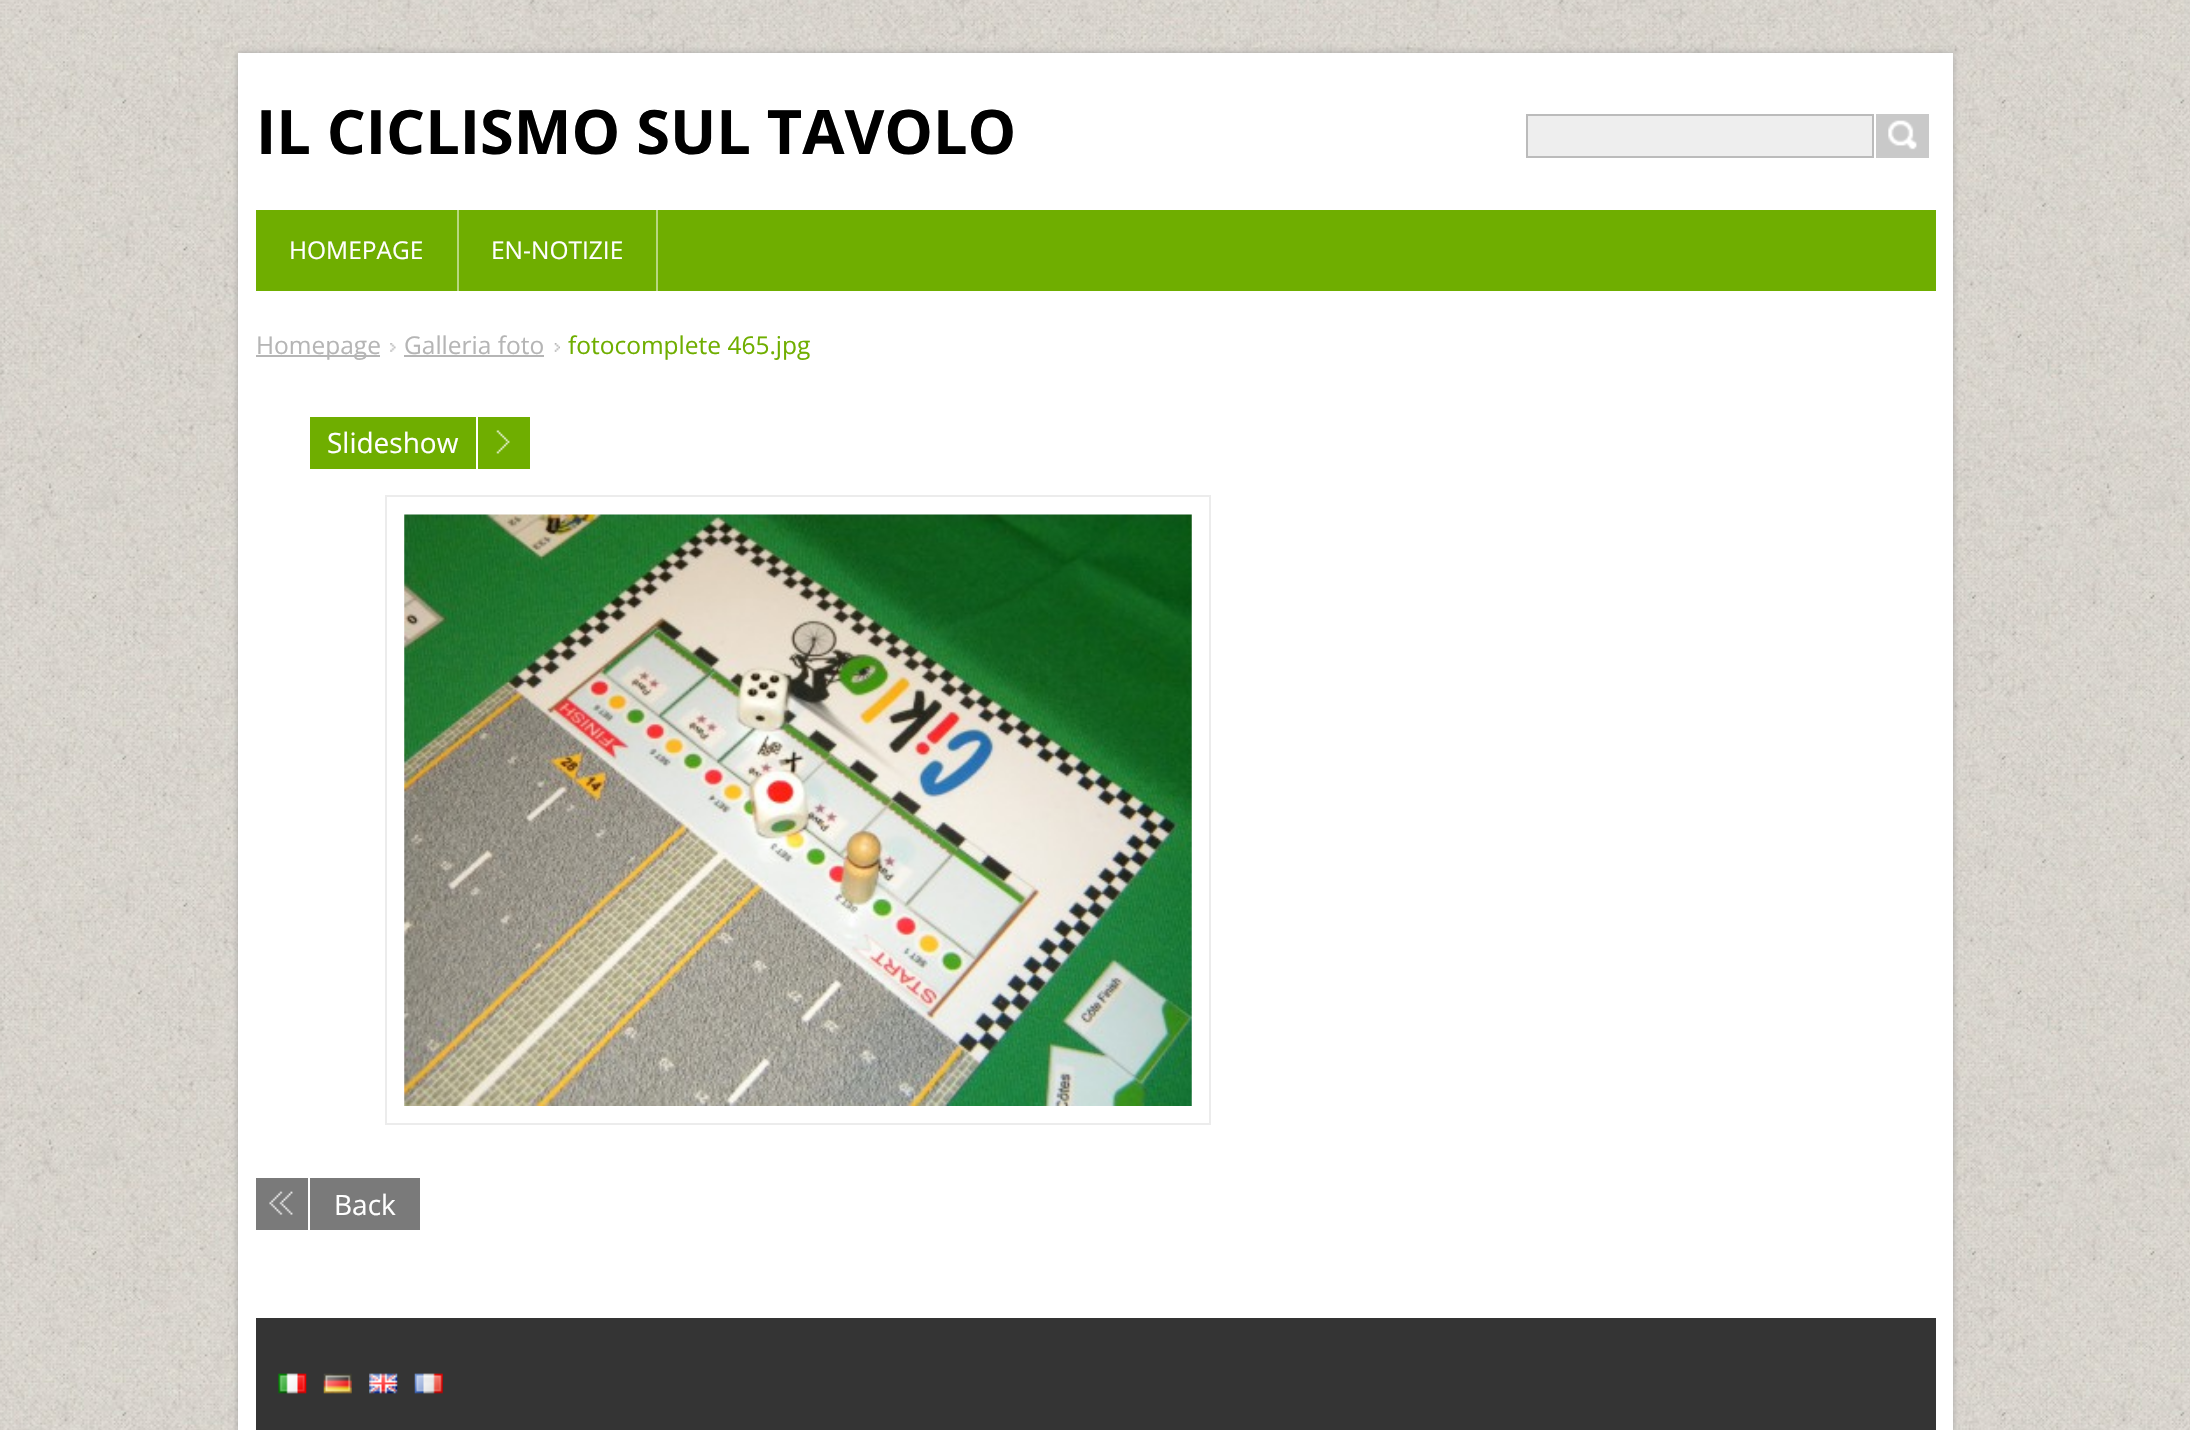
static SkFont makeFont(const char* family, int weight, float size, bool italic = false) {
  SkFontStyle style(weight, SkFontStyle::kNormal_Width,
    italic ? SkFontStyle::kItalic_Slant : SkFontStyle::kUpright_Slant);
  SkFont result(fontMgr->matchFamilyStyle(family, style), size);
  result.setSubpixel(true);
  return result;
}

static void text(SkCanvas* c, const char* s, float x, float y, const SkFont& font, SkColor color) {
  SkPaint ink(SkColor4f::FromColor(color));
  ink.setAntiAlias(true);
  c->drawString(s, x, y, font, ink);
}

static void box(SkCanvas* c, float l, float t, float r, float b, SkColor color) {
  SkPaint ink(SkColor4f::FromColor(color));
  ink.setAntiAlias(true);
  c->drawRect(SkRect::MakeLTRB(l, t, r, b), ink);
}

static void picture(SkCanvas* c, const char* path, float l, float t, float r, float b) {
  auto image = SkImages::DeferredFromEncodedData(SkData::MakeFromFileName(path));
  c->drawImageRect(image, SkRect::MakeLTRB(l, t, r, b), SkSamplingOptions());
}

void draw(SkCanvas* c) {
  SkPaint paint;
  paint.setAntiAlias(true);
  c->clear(0xffffffff);
  picture(c, "img_01.png", 0, 0, 2190, 1430);
  paint.setColor(0xbf989898);
  paint.setMaskFilter(SkMaskFilter::MakeBlur(kNormal_SkBlurStyle, 3.5f));
  c->drawRect(SkRect::MakeLTRB(238, 53, 1953, 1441), paint);
  paint.setMaskFilter(nullptr);
  box(c, 238, 53, 1953, 1430, 0xffffffff);
  SkFont face1 = makeFont("Open Sans", 700, 61.25f);
  text(c, "IL CICLISMO SUL TAVOLO", 256, 154, face1, 0xff000000);
  paint.setColor(0xffeeeeee);
  c->drawRect(SkRect::MakeLTRB(1527, 115, 1873, 157), paint);
  paint.setStyle(SkPaint::kStroke_Style);
  paint.setStrokeWidth(2);
  paint.setColor(0xffbbbbbb);
  c->drawRect(SkRect::MakeLTRB(1527, 115, 1873, 157), paint);
  box(c, 1876, 114, 1929, 158, 0xffc9c9c9);
  picture(c, "img_02.png", 1888, 120, 1917, 150);
  box(c, 256, 210, 1936, 291, 0xff6fae00);
  box(c, 457, 210, 459, 291, 0xffb7d780);
  SkFont face2 = makeFont("Open Sans", 400, 24.5f);
  text(c, "HOMEPAGE", 289, 259, face2, 0xffffffff);
  box(c, 656, 210, 658, 291, 0xffb7d780);
  text(c, "EN-NOTIZIE", 491, 259, face2, 0xffffffff);
  box(c, 256, 355, 380, 357, 0xffb5b5b5);
  text(c, "Homepage", 256, 354, face2, 0xffb5b5b5);
  picture(c, "img_03.png", 390, 343, 396, 352);
  text(c, "Galleria foto", 404, 354, face2, 0xffb5b5b5);
  box(c, 404, 355, 544, 357, 0xffb5b5b5);
  picture(c, "img_04.png", 554, 343, 560, 352);
  text(c, "fotocomplete 465.jpg", 568, 354, face2, 0xff6fae00);
  box(c, 310, 417, 476, 469, 0xff6fae00);
  SkFont face3 = makeFont("Open Sans", 400, 28);
  text(c, "Slideshow", 327, 453, face3, 0xffffffff);
  box(c, 478, 417, 530, 469, 0xff6fae00);
  picture(c, "img_05.png", 496, 430, 510, 454);
  paint.setColor(0xffececec);
  c->drawRect(SkRect::MakeLTRB(386, 496, 1210, 1124), paint);
  picture(c, "img_06.png", 404, 514, 1192, 1106);
  box(c, 256, 1178, 420, 1230, 0xff7a7a7a);
  picture(c, "img_07.png", 269, 1191, 293, 1215);
  box(c, 308, 1178, 310, 1230, 0xffffffff);
  text(c, "Back", 334, 1215, face3, 0xffffffff);
  box(c, 256, 1318, 1936, 1430, 0xff343434);
  picture(c, "img_08.png", 278, 1373, 307, 1394);
  picture(c, "img_09.png", 323, 1373, 352, 1394);
  picture(c, "img_10.png", 369, 1373, 398, 1394);
  picture(c, "img_11.png", 414, 1373, 443, 1394);
}
